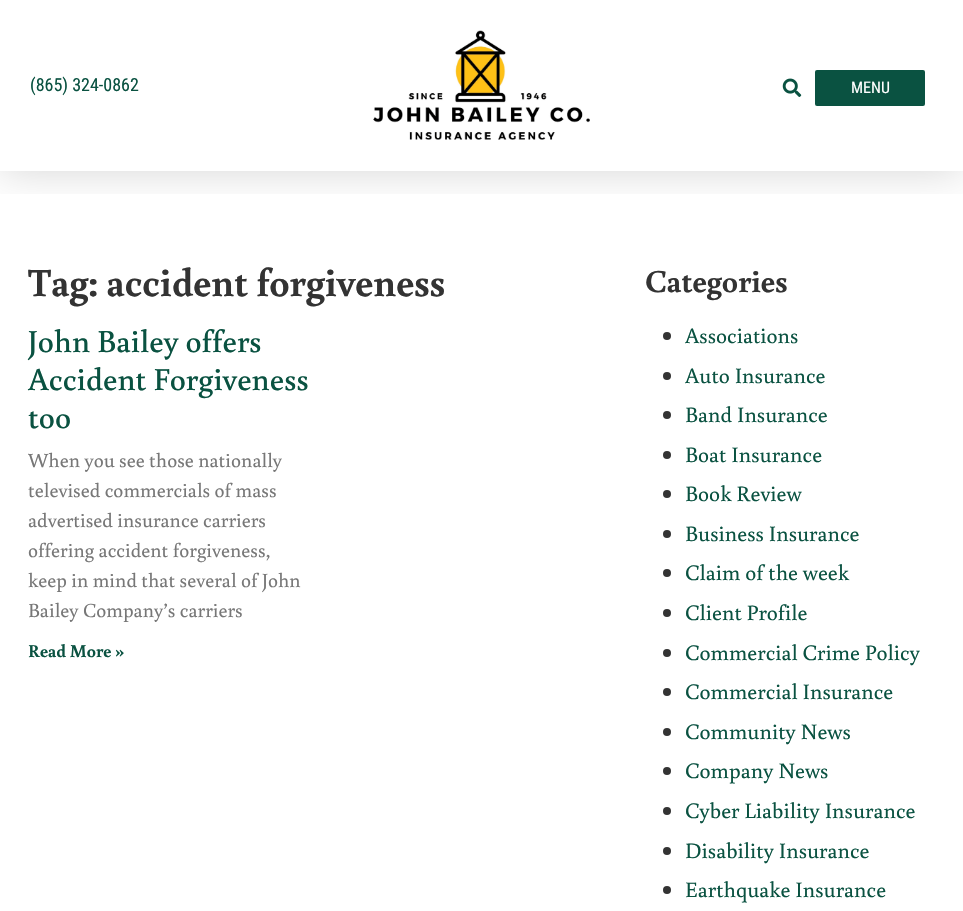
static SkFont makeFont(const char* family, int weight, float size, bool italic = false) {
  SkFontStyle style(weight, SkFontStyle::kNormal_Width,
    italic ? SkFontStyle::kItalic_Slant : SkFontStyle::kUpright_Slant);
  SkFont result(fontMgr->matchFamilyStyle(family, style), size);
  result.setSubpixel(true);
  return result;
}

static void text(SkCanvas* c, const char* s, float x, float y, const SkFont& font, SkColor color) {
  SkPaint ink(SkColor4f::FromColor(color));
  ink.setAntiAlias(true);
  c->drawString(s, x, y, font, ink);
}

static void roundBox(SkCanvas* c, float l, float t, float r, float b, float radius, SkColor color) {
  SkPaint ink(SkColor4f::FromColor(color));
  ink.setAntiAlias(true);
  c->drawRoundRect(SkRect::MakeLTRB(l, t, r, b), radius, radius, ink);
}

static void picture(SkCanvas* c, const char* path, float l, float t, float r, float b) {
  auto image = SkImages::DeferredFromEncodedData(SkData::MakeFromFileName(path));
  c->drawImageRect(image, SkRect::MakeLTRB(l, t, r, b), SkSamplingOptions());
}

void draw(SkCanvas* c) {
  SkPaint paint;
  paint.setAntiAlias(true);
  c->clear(0xffffffff);
  c->save();
  c->clipRect(SkRect::MakeLTRB(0, 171, 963, 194));
  paint.setColor(0x29000000);
  paint.setMaskFilter(SkMaskFilter::MakeBlur(kNormal_SkBlurStyle, 20));
  c->drawRect(SkRect::MakeLTRB(0, 0, 963, 171), paint);
  paint.setMaskFilter(nullptr);
  c->restore();
  SkFont face1 = makeFont("Roboto Condensed", 400, 18);
  text(c, "(865) 324-0862", 30, 91, face1, 0xff0a5241);
  picture(c, "img_01.png", 373, 30, 590, 140);
  picture(c, "img_02.png", 782, 78, 802, 97);
  roundBox(c, 815, 70, 925, 106, 2, 0xff0a5241);
  SkFont face2 = makeFont("Roboto Condensed", 400, 16);
  text(c, "MENU", 851, 93, face2, 0xffffffff);
  SkFont face3 = makeFont("Buenard", 700, 40);
  text(c, "Tag: accident forgiveness", 28, 296, face3, 0xff333333);
  SkFont face4 = makeFont("Buenard", 500, 32);
  text(c, "John Bailey offers", 28, 352, face4, 0xff0a5241);
  text(c, "Accident Forgiveness", 28, 390, face4, 0xff0a5241);
  text(c, "too", 28, 428, face4, 0xff0a5241);
  SkFont face5 = makeFont("Buenard", 400, 20);
  text(c, "When you see those nationally", 28, 467, face5, 0xff777777);
  text(c, "televised commercials of mass", 28, 497, face5, 0xff777777);
  text(c, "advertised insurance carriers", 28, 527, face5, 0xff777777);
  text(c, "offering accident forgiveness,", 28, 557, face5, 0xff777777);
  text(c, "keep in mind that several of John", 28, 587, face5, 0xff777777);
  text(c, "Bailey Company’s carriers", 28, 617, face5, 0xff777777);
  SkFont face6 = makeFont("Buenard", 700, 18);
  text(c, "Read More »", 28, 657, face6, 0xff0a5241);
  SkFont face7 = makeFont("Buenard", 700, 32);
  text(c, "Categories", 645, 292, face7, 0xff333333);
  paint.setColor(0xff333333);
  c->drawCircle(667, 336, 4, paint);
  SkFont face8 = makeFont("Buenard", 400, 22);
  text(c, "Associations", 685, 343, face8, 0xff0a5241);
  c->drawCircle(667, 376, 4, paint);
  text(c, "Auto Insurance", 685, 383, face8, 0xff0a5241);
  c->drawCircle(667, 415, 4, paint);
  text(c, "Band Insurance", 685, 422, face8, 0xff0a5241);
  c->drawCircle(667, 455, 4, paint);
  text(c, "Boat Insurance", 685, 462, face8, 0xff0a5241);
  c->drawCircle(667, 494, 4, paint);
  text(c, "Book Review", 685, 501, face8, 0xff0a5241);
  c->drawCircle(667, 534, 4, paint);
  text(c, "Business Insurance", 685, 541, face8, 0xff0a5241);
  c->drawCircle(667, 573, 4, paint);
  text(c, "Claim of the week", 685, 580, face8, 0xff0a5241);
  c->drawCircle(667, 613, 4, paint);
  text(c, "Client Profile", 685, 620, face8, 0xff0a5241);
  c->drawCircle(667, 653, 4, paint);
  text(c, "Commercial Crime Policy", 685, 660, face8, 0xff0a5241);
  c->drawCircle(667, 692, 4, paint);
  text(c, "Commercial Insurance", 685, 699, face8, 0xff0a5241);
  c->drawCircle(667, 732, 4, paint);
  text(c, "Community News", 685, 739, face8, 0xff0a5241);
  c->drawCircle(667, 771, 4, paint);
  text(c, "Company News", 685, 778, face8, 0xff0a5241);
  c->drawCircle(667, 811, 4, paint);
  text(c, "Cyber Liability Insurance", 685, 818, face8, 0xff0a5241);
  c->drawCircle(667, 851, 4, paint);
  text(c, "Disability Insurance", 685, 858, face8, 0xff0a5241);
  c->drawCircle(667, 890, 4, paint);
  text(c, "Earthquake Insurance", 685, 897, face8, 0xff0a5241);
}
